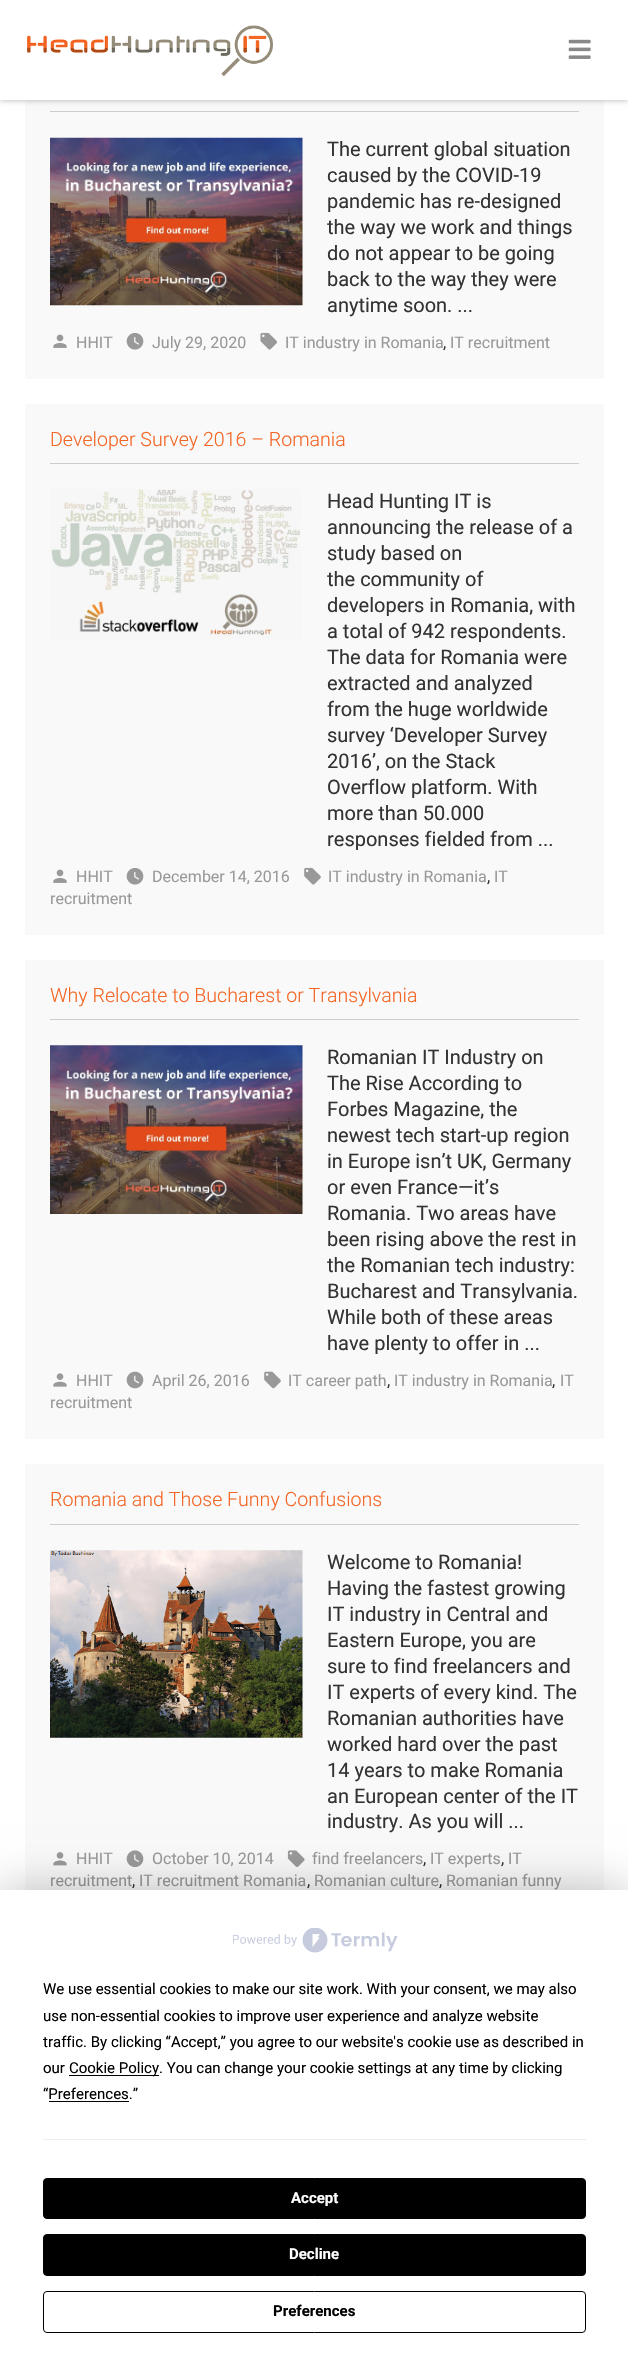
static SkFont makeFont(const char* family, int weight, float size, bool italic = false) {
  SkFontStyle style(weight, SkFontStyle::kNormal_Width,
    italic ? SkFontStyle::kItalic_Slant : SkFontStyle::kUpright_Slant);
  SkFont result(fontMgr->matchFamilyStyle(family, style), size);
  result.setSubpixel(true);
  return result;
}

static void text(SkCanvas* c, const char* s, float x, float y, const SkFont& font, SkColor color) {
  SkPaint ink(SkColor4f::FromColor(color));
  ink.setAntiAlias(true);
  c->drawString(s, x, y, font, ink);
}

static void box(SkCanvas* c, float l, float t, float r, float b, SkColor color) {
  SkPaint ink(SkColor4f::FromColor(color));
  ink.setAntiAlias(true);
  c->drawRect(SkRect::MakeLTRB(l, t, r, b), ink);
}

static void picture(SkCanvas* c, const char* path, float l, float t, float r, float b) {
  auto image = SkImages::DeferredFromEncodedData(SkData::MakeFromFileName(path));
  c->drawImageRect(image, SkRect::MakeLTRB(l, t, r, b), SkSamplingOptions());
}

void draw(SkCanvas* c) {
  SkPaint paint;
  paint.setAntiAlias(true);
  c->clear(0xffffffff);
  box(c, 25, 100, 604, 379, 0xfff9f9f9);
  paint.setColor(0x4d000000);
  paint.setMaskFilter(SkMaskFilter::MakeBlur(kNormal_SkBlurStyle, 3));
  c->drawRect(SkRect::MakeLTRB(0, 0, 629, 100), paint);
  paint.setMaskFilter(nullptr);
  box(c, 0, 0, 628, 100, 0xffffffff);
  picture(c, "img_01.png", 27, 25, 273, 77);
  picture(c, "img_02.png", 568, 39, 591, 59);
  box(c, 50, 111, 579, 112, 0xffcccccc);
  picture(c, "img_03.png", 50, 137, 303, 306);
  SkFont face1 = makeFont("Roboto", 400, 20);
  text(c, "The current global situation", 327, 156, face1, 0xff333333);
  text(c, "caused by the COVID-19", 327, 182, face1, 0xff333333);
  text(c, "pandemic has re-designed", 327, 208, face1, 0xff333333);
  text(c, "the way we work and things", 327, 234, face1, 0xff333333);
  text(c, "do not appear to be going", 327, 260, face1, 0xff333333);
  text(c, "back to the way they were", 327, 286, face1, 0xff333333);
  text(c, "anytime soon. ...", 327, 312, face1, 0xff333333);
  picture(c, "img_04.png", 53, 334, 67, 348);
  SkFont face2 = makeFont("Roboto", 400, 16);
  text(c, "HHIT", 76, 348, face2, 0xff999999);
  picture(c, "img_05.png", 126, 333, 144, 350);
  text(c, "July 29, 2020", 152, 348, face2, 0xff999999);
  picture(c, "img_06.png", 260, 332, 277, 350);
  text(c, "IT industry in Romania", 285, 348, face2, 0xff999999);
  text(c, ",", 443, 348, face2, 0xff333333);
  text(c, "IT recruitment", 450, 348, face2, 0xff999999);
  box(c, 25, 404, 604, 935, 0xfff9f9f9);
  box(c, 50, 463, 579, 464, 0xffcccccc);
  SkFont face3 = makeFont("Roboto", 300, 19.6f);
  text(c, "Developer Survey 2016 – Romania", 50, 446, face3, 0xfff36523);
  picture(c, "img_07.png", 50, 489, 301, 641);
  text(c, "Head Hunting IT is", 327, 508, face1, 0xff333333);
  text(c, "announcing the release of a", 327, 534, face1, 0xff333333);
  text(c, "study based on", 327, 560, face1, 0xff333333);
  text(c, "the community of", 327, 586, face1, 0xff333333);
  text(c, "developers in Romania, with", 327, 612, face1, 0xff333333);
  text(c, "a total of 942 respondents.", 327, 638, face1, 0xff333333);
  text(c, "The data for Romania were", 327, 664, face1, 0xff333333);
  text(c, "extracted and analyzed", 327, 690, face1, 0xff333333);
  text(c, "from the huge worldwide", 327, 716, face1, 0xff333333);
  text(c, "survey ‘Developer Survey", 327, 742, face1, 0xff333333);
  text(c, "2016’, on the Stack", 327, 768, face1, 0xff333333);
  text(c, "Overflow platform. With", 327, 794, face1, 0xff333333);
  text(c, "more than 50.000", 327, 820, face1, 0xff333333);
  text(c, "responses fielded from ...", 327, 846, face1, 0xff333333);
  picture(c, "img_04.png", 53, 869, 67, 883);
  text(c, "HHIT", 76, 882, face2, 0xff999999);
  picture(c, "img_05.png", 126, 868, 144, 885);
  text(c, "December 14, 2016", 152, 882, face2, 0xff999999);
  picture(c, "img_08.png", 304, 867, 321, 885);
  text(c, "IT industry in Romania", 328, 882, face2, 0xff999999);
  text(c, "IT", 494, 882, face2, 0xff999999);
  text(c, ",", 487, 882, face2, 0xff333333);
  text(c, "recruitment", 50, 904, face2, 0xff999999);
  box(c, 25, 960, 604, 1439, 0xfff9f9f9);
  box(c, 50, 1019, 579, 1020, 0xffcccccc);
  text(c, "Why Relocate to Bucharest or Transylvania", 50, 1002, face3, 0xfff36523);
  picture(c, "img_09.png", 50, 1045, 303, 1214);
  text(c, "Romanian IT Industry on", 327, 1064, face1, 0xff333333);
  text(c, "The Rise According to", 327, 1090, face1, 0xff333333);
  text(c, "Forbes Magazine, the", 327, 1116, face1, 0xff333333);
  text(c, "newest tech start-up region", 327, 1142, face1, 0xff333333);
  text(c, "in Europe isn’t UK, Germany", 327, 1168, face1, 0xff333333);
  text(c, "or even France—it’s", 327, 1194, face1, 0xff333333);
  text(c, "Romania. Two areas have", 327, 1220, face1, 0xff333333);
  text(c, "been rising above the rest in", 327, 1246, face1, 0xff333333);
  text(c, "the Romanian tech industry:", 327, 1272, face1, 0xff333333);
  text(c, "Bucharest and Transylvania.", 327, 1298, face1, 0xff333333);
  text(c, "While both of these areas", 327, 1324, face1, 0xff333333);
  text(c, "have plenty to offer in ...", 327, 1350, face1, 0xff333333);
  picture(c, "img_10.png", 53, 1373, 67, 1387);
  text(c, "HHIT", 76, 1386, face2, 0xff999999);
  picture(c, "img_11.png", 126, 1371, 144, 1389);
  text(c, "April 26, 2016", 152, 1386, face2, 0xff999999);
  picture(c, "img_12.png", 264, 1371, 281, 1389);
  text(c, "IT career path", 288, 1386, face2, 0xff999999);
  text(c, "IT industry in Romania", 394, 1386, face2, 0xff999999);
  text(c, "IT", 560, 1386, face2, 0xff999999);
  text(c, ",", 387, 1386, face2, 0xff333333);
  text(c, ",", 552, 1386, face2, 0xff333333);
  text(c, "recruitment", 50, 1408, face2, 0xff999999);
  box(c, 25, 1464, 604, 1890, 0xfff9f9f9);
  box(c, 50, 1524, 579, 1525, 0xffcccccc);
  text(c, "Romania and Those Funny Confusions", 50, 1506, face3, 0xfff36523);
  picture(c, "img_13.png", 50, 1550, 303, 1738);
  text(c, "Welcome to Romania!", 327, 1569, face1, 0xff333333);
  text(c, "Having the fastest growing", 327, 1595, face1, 0xff333333);
  text(c, "IT industry in Central and", 327, 1621, face1, 0xff333333);
  text(c, "Eastern Europe, you are", 327, 1647, face1, 0xff333333);
  text(c, "sure to find freelancers and", 327, 1673, face1, 0xff333333);
  text(c, "IT experts of every kind. The", 327, 1699, face1, 0xff333333);
  text(c, "Romanian authorities have", 327, 1725, face1, 0xff333333);
  text(c, "worked hard over the past", 327, 1751, face1, 0xff333333);
  text(c, "14 years to make Romania", 327, 1777, face1, 0xff333333);
  text(c, "an European center of the IT", 327, 1803, face1, 0xff333333);
  text(c, "industry. As you will ...", 327, 1828, face1, 0xff333333);
  picture(c, "img_14.png", 53, 1852, 67, 1866);
  text(c, "HHIT", 76, 1864, face2, 0xff999999);
  picture(c, "img_15.png", 126, 1850, 144, 1867);
  text(c, "October 10, 2014", 152, 1864, face2, 0xff999999);
  picture(c, "img_16.png", 287, 1850, 305, 1867);
  text(c, "find freelancers", 312, 1864, face2, 0xff999999);
  text(c, "IT experts", 430, 1864, face2, 0xff999999);
  text(c, "IT", 508, 1864, face2, 0xff999999);
  text(c, ",", 423, 1864, face2, 0xff333333);
  text(c, ",", 501, 1864, face2, 0xff333333);
  text(c, "recruitment", 50, 1886, face2, 0xff999999);
  text(c, ",", 132, 1886, face2, 0xff333333);
  text(c, "IT recruitment Romania", 139, 1886, face2, 0xff999999);
  text(c, ",", 307, 1886, face2, 0xff333333);
  text(c, "Romanian culture", 314, 1886, face2, 0xff999999);
  text(c, ",", 439, 1886, face2, 0xff333333);
  text(c, "Romanian funny", 446, 1886, face2, 0xff999999);
  paint.setColor(0x40000000);
  paint.setMaskFilter(SkMaskFilter::MakeBlur(kNormal_SkBlurStyle, 22));
  c->drawRect(SkRect::MakeLTRB(0, 1890, 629, 2370), paint);
  paint.setMaskFilter(nullptr);
  box(c, 0, 1890, 628, 2370, 0xffffffff);
  picture(c, "img_17.png", 233, 1928, 398, 1953);
  SkFont face4 = makeFont("Roboto", 400, 15);
  text(c, "We use essential cookies to make our site work. With your consent, we may also", 43, 1994, face4, 0xff000000);
  text(c, "use non-essential cookies to improve user experience and analyze website", 43, 2021, face4, 0xff000000);
  text(c, "traffic. By clicking “Accept,” you agree to our website's cookie use as described in", 43, 2047, face4, 0xff000000);
  text(c, "our", 43, 2073, face4, 0xff000000);
  box(c, 69, 2075, 159, 2076, 0xff000000);
  text(c, "Cookie Policy. You can change your cookie settings at any time by clicking", 69, 2073, face4, 0xff000000);
  text(c, "“Preferences.”", 43, 2099, face4, 0xff000000);
  box(c, 49, 2101, 129, 2102, 0xff000000);
  box(c, 43, 2139, 586, 2140, 0xffededef);
  paint.setColor(0xff000000);
  c->drawRoundRect(SkRect::MakeLTRB(43.5f, 2178.5f, 585.5f, 2218.5f), 3.5f, 3.5f, paint);
  paint.setStyle(SkPaint::kStroke_Style);
  paint.setStrokeWidth(1);
  c->drawRoundRect(SkRect::MakeLTRB(43.5f, 2178.5f, 585.5f, 2218.5f), 3.5f, 3.5f, paint);
  SkFont face5 = makeFont("Roboto", 700, 15);
  text(c, "Accept", 291, 2203, face5, 0xffffffff);
  paint.setStyle(SkPaint::kFill_Style);
  c->drawRoundRect(SkRect::MakeLTRB(43.5f, 2234.5f, 585.5f, 2275.5f), 3.5f, 3.5f, paint);
  paint.setStyle(SkPaint::kStroke_Style);
  c->drawRoundRect(SkRect::MakeLTRB(43.5f, 2234.5f, 585.5f, 2275.5f), 3.5f, 3.5f, paint);
  text(c, "Decline", 289, 2259, face5, 0xffffffff);
  c->drawRoundRect(SkRect::MakeLTRB(43.5f, 2291.5f, 585.5f, 2332.5f), 3.5f, 3.5f, paint);
  text(c, "Preferences", 273, 2316, face5, 0xff000000);
}
